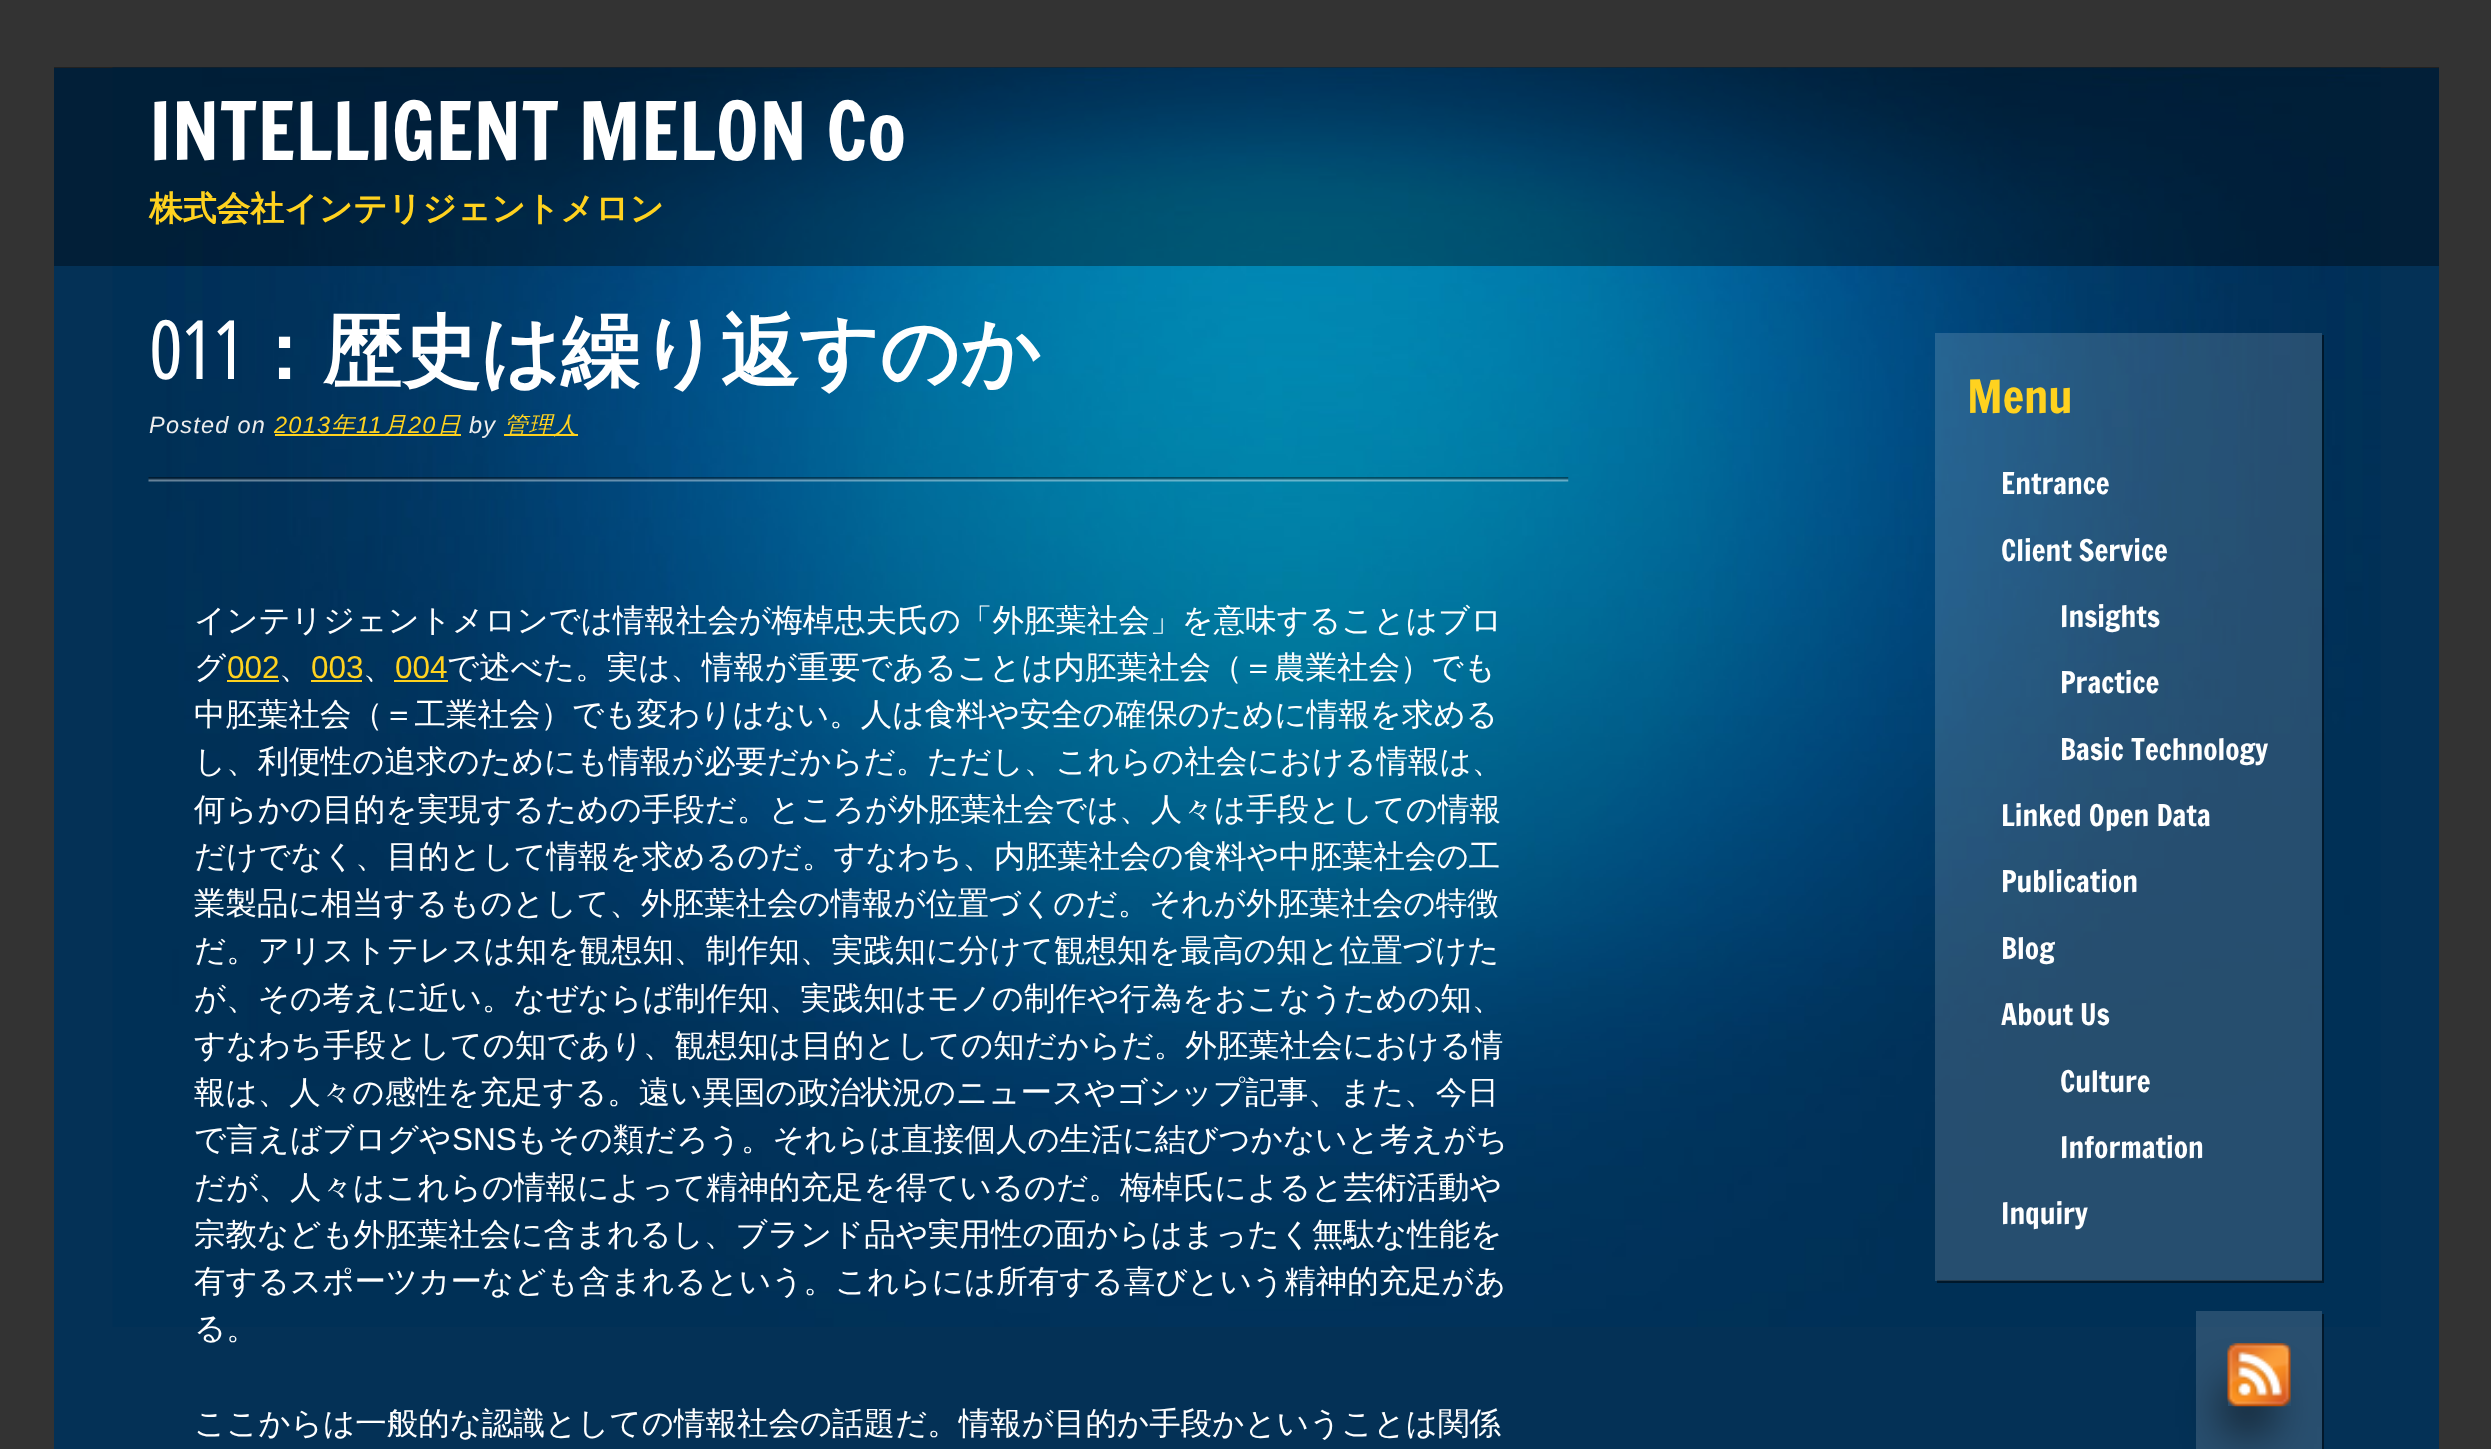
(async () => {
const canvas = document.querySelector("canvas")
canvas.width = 2491
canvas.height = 1449
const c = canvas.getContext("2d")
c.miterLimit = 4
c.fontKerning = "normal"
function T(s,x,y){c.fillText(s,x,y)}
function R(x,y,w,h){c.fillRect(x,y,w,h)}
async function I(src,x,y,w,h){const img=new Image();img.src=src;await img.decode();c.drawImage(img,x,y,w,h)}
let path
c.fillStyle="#333"
R(0,0,2491,1449)
c.fillStyle="#043156"
R(54,68,2385,1381)
await I("1.png",112,67,2269,1260)
c.fillStyle="#00000059"
R(54,67,2385,199)
c.font="78.75px Francois One"
c.fillStyle="#fff"
T("INTELLIGENT MELON Co",149,160)
c.font="bold 33.75px WenQuanYi Zen Hei"
c.fillStyle="#ffd21f"
T("株式会社インテリジェントメロン",149,220)
await I("2.png",148,477,1421,5)
c.font="bold 78.75px Open Sans Condensed"
c.fillStyle="#fff"
T("011",149,379)
c.font="bold 78.75px WenQuanYi Zen Hei"
T("：歴史は繰り返すのか",244,379)
c.letterSpacing="1.25px"
c.font="italic 23.5px Liberation Sans"
c.fillStyle="#eee"
T("Posted on",149,433)
c.fillStyle="#ffd21f"
T("2013",274,433)
R(275,434,186,2)
c.font="italic 500 23.5px WenQuanYi Zen Hei"
T("年",331,433)
c.font="italic 23.5px Liberation Sans"
T("11",356,433)
c.font="italic 500 23.5px WenQuanYi Zen Hei"
T("月",383,433)
c.font="italic 23.5px Liberation Sans"
T("20",408,433)
c.font="italic 500 23.5px WenQuanYi Zen Hei"
T("日",437,433)
c.font="italic 23.5px Liberation Sans"
c.fillStyle="#eee"
T("by",469,433)
c.fillStyle="#ffd21f"
R(504,434,74,2)
c.font="italic 500 23.5px WenQuanYi Zen Hei"
T("管理人",504,433)
c.letterSpacing="0px"
c.font="500 31.5px WenQuanYi Zen Hei"
c.fillStyle="#fff"
T("インテリジェントメロンでは情報社会が梅棹忠夫氏の「外胚葉社会」を意味することはブロ",194,631)
T("グ",194,678)
c.font="31.5px Liberation Sans"
c.fillStyle="#ffd21f"
T("002",227,678)
R(227,680,52,2)
c.font="500 31.5px WenQuanYi Zen Hei"
c.fillStyle="#fff"
T("、",279,678)
c.font="31.5px Liberation Sans"
c.fillStyle="#ffd21f"
T("003",311,678)
R(311,680,51,2)
c.font="500 31.5px WenQuanYi Zen Hei"
c.fillStyle="#fff"
T("、",363,678)
c.font="31.5px Liberation Sans"
c.fillStyle="#ffd21f"
T("004",395,678)
R(394,680,54,2)
c.font="500 31.5px WenQuanYi Zen Hei"
c.fillStyle="#fff"
T("で述べた。実は、情報が重要であることは内胚葉社会（＝農業社会）でも",447,678)
T("中胚葉社会（＝工業社会）でも変わりはない。人は食料や安全の確保のために情報を求める",194,725)
T("し、利便性の追求のためにも情報が必要だからだ。ただし、これらの社会における情報は、",194,772)
T("何らかの目的を実現するための手段だ。ところが外胚葉社会では、人々は手段としての情報",194,820)
T("だけでなく、目的として情報を求めるのだ。すなわち、内胚葉社会の食料や中胚葉社会の工",194,867)
T("業製品に相当するものとして、外胚葉社会の情報が位置づくのだ。それが外胚葉社会の特徴",194,914)
T("だ。アリストテレスは知を観想知、制作知、実践知に分けて観想知を最高の知と位置づけた",194,961)
T("が、その考えに近い。なぜならば制作知、実践知はモノの制作や行為をおこなうための知、",194,1009)
T("すなわち手段としての知であり、観想知は目的としての知だからだ。外胚葉社会における情",194,1056)
T("報は、人々の感性を充足する。遠い異国の政治状況のニュースやゴシップ記事、また、今日",194,1103)
T("で言えばブログや",194,1150)
c.font="31.5px Liberation Sans"
T("SNS",452,1150)
c.font="500 31.5px WenQuanYi Zen Hei"
T("もその類だろう。それらは直接個人の生活に結びつかないと考えがち",516,1150)
T("だが、人々はこれらの情報によって精神的充足を得ているのだ。梅棹氏によると芸術活動や",194,1198)
T("宗教なども外胚葉社会に含まれるし、ブランド品や実用性の面からはまったく無駄な性能を",194,1245)
T("有するスポーツカーなども含まれるという。これらには所有する喜びという精神的充足があ",194,1292)
T("る。",194,1339)
T("ここからは一般的な認識としての情報社会の話題だ。情報が目的か手段かということは関係",194,1434)
c.fillStyle="#00000080"
path = new Path2D("M1937 1280v3h387v-948h-2v945z")
c.fill(path)
c.fillStyle="#ffffff26"
R(1935,333,387,948)
c.font="45px Francois One"
c.fillStyle="#ffd21f"
T("Menu",1967,413)
c.font="29.25px Francois One"
c.fillStyle="#fff"
T("Entrance",2001,494)
T("Client Service",2001,561)
T("Insights",2060,627)
T("Practice",2060,693)
T("Basic Technology",2060,760)
T("Linked Open Data",2001,826)
T("Publication",2001,892)
T("Blog",2001,959)
T("About Us",2001,1025)
T("Culture",2060,1092)
T("Information",2060,1158)
T("Inquiry",2001,1224)
c.fillStyle="#00000080"
path = new Path2D("M2198 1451v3h126v-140h-2v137z")
c.fill(path)
c.fillStyle="#ffffff26"
R(2196,1311,126,138)
c.save()
path = new Path2D("M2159 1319h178v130h-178zm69 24h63v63h-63z")
c.clip(path,"evenodd")
c.fillStyle="#000000cc"
c.filter="blur(22.5px)"
c.beginPath()
c.rect(2228,1388,40,41)
c.fill()
c.filter="none"
c.restore()
await I("3.png",2227,1343,64,64)
})()
